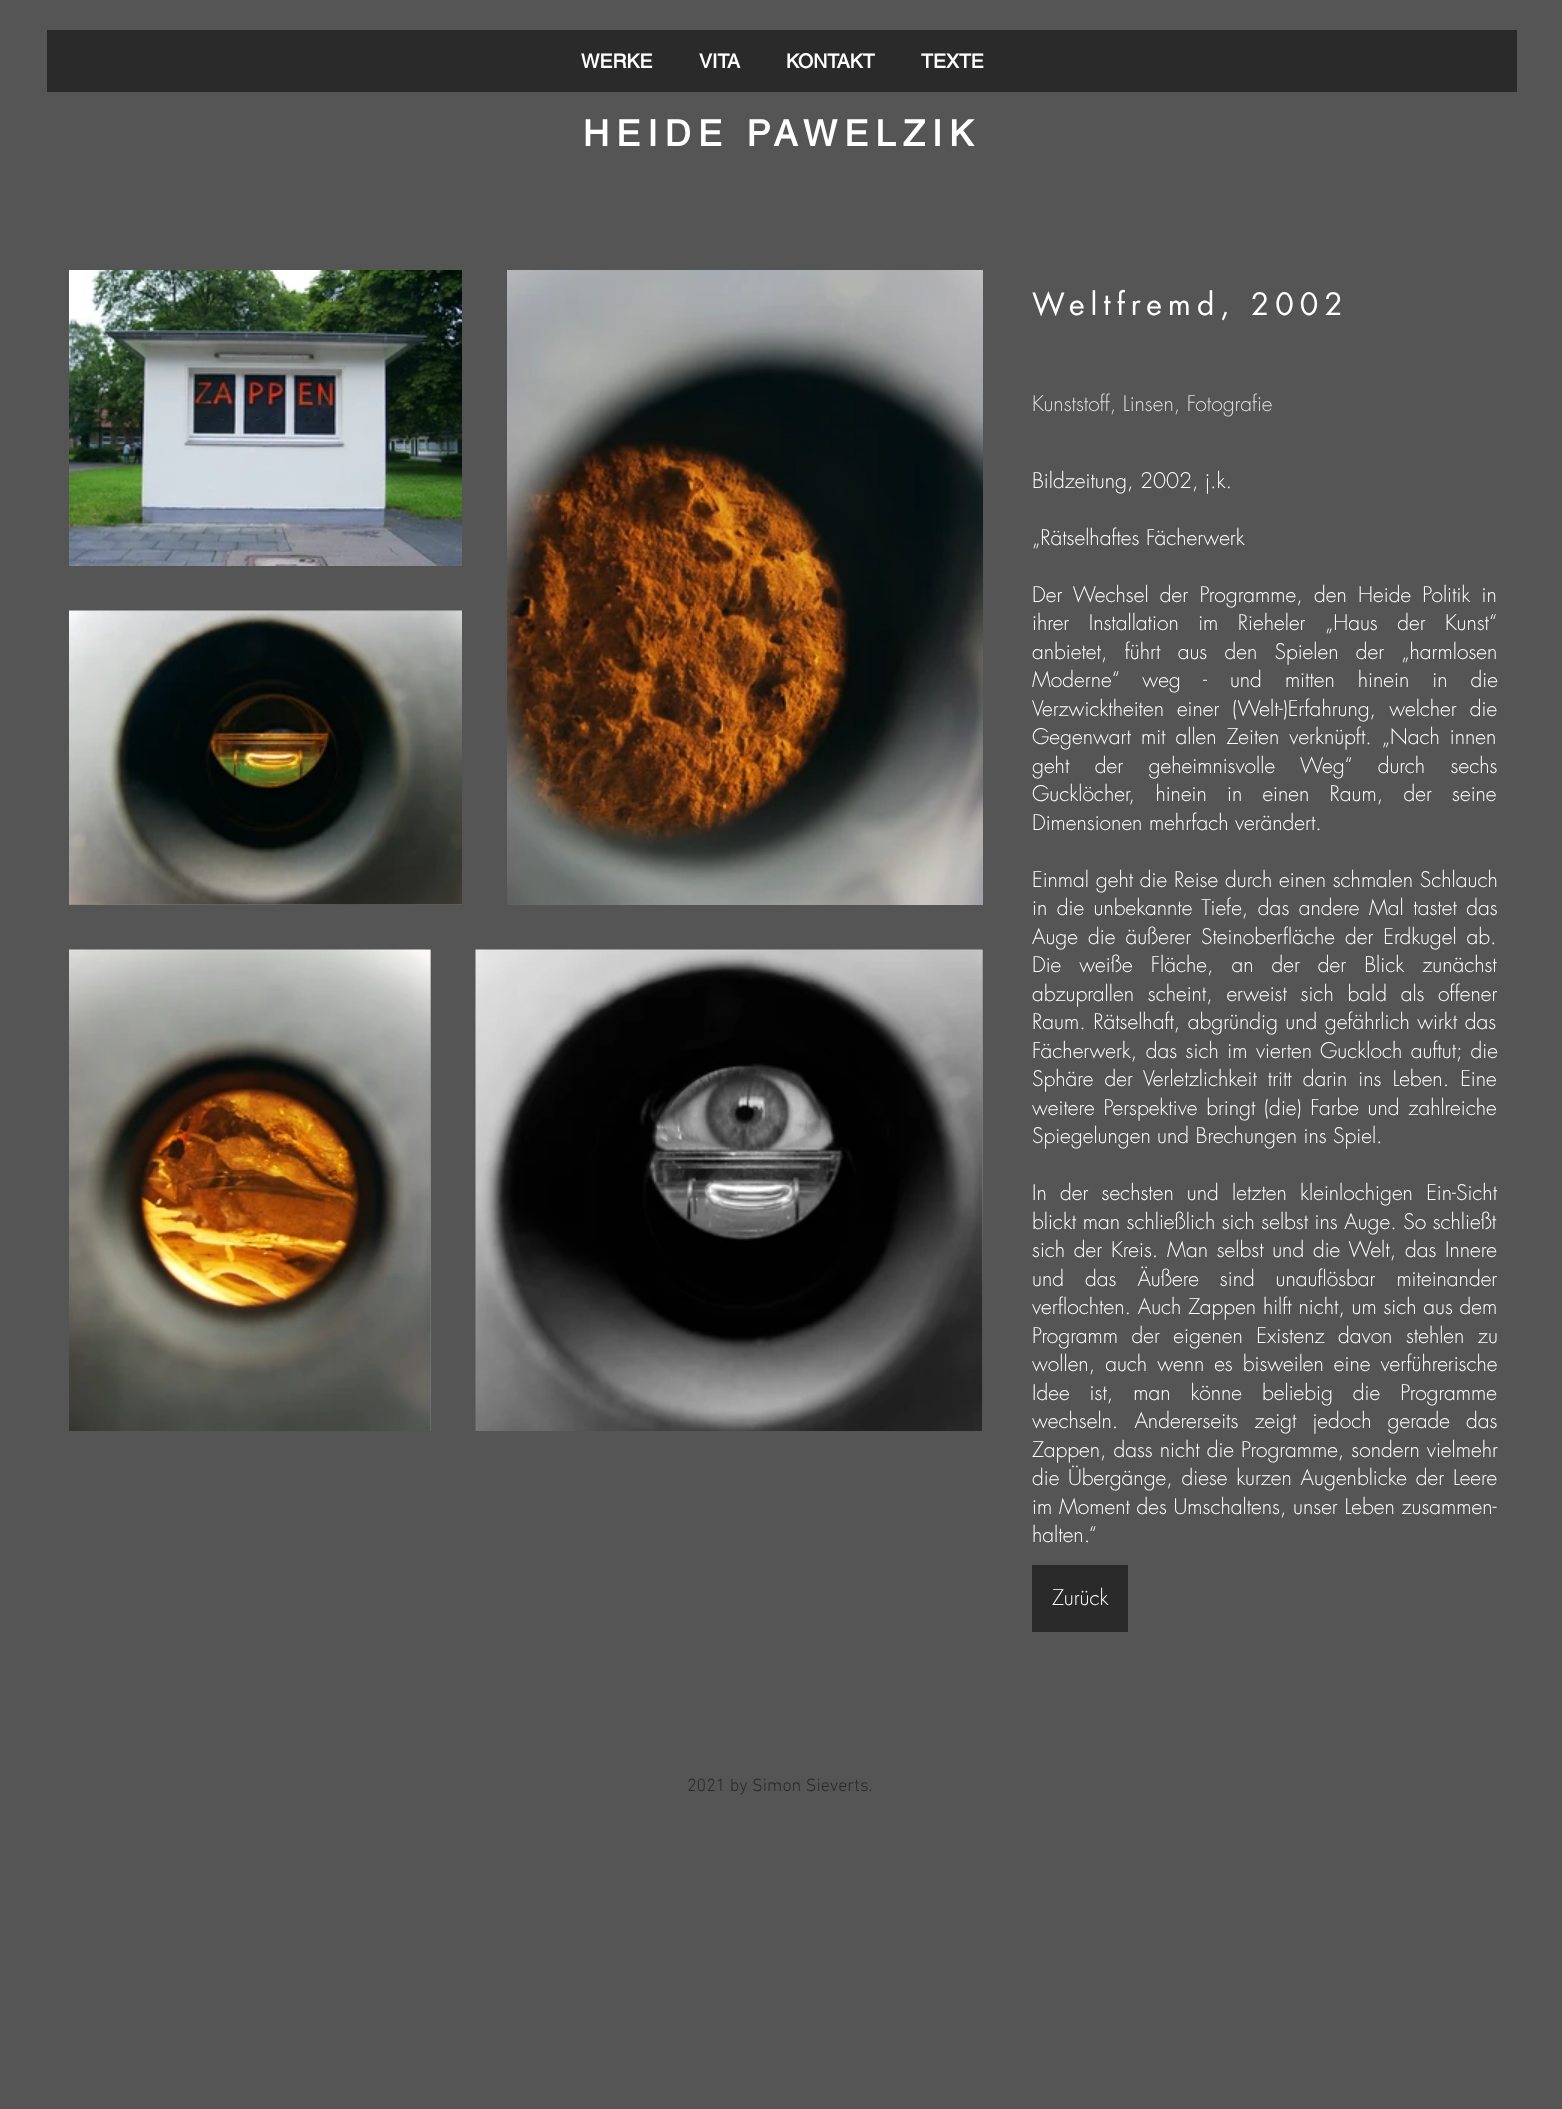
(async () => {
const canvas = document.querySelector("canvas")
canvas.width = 1562
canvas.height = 2109
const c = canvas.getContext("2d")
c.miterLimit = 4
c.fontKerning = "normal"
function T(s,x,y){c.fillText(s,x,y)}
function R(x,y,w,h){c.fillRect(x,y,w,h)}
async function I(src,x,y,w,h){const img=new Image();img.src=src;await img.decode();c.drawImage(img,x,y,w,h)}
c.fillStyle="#555"
R(0,0,1562,2109)
c.fillStyle="#2a2a2a"
R(47,30,1470,62)
c.font="bold 19.5px helvetica"
c.fillStyle="#fff"
T("WERKE",581,68)
T("VITA",699,68)
T("KONTAKT",786,68)
T("TEXTE",921,68)
c.letterSpacing="7.25px"
c.font="bold 36px helvetica"
T("HEIDE PAWELZIK",583,146)
await I("1.png",69,270,393,296)
await I("2.png",507,270,476,635)
c.fillStyle="#808080"
R(69,904,393,1)
await I("3.png",69,610,393,295)
R(430,950,1,481)
await I("4.png",69,949,362,482)
R(982,950,1,481)
await I("5.png",475,949,508,482)
c.letterSpacing="6px"
c.font="30px futura"
c.fillStyle="#fff"
T("Weltfremd, 2002",1032,315)
c.letterSpacing="0px"
c.font="300 21px futura"
c.fillStyle="#ddd"
T("Kunststoff, Linsen, Fotografie",1032,411)
c.fillStyle="#fff"
T("Bildzeitung, 2002, j.k.",1032,488)
T("„Rätselhaftes Fächerwerk",1032,545)
c.wordSpacing="4.75px"
T("Der Wechsel der Programme, den Heide Politik in",1032,602)
c.wordSpacing="13px"
T("ihrer Installation im Rieheler „Haus der Kunst“",1032,630)
c.wordSpacing="10.75px"
T("anbietet, führt aus den Spielen der „harmlosen",1032,659)
c.wordSpacing="16.5px"
T("Moderne“ weg - und mitten hinein in die",1032,687)
c.wordSpacing="6.5px"
T("Verzwicktheiten einer (Welt-)Erfahrung, welcher die",1032,716)
c.wordSpacing="3.5px"
T("Gegenwart mit allen Zeiten verknüpft. „Nach innen",1032,744)
c.wordSpacing="19px"
T("geht der geheimnisvolle Weg“ durch sechs",1032,773)
c.wordSpacing="13.75px"
T("Gucklöcher, hinein in einen Raum, der seine",1032,801)
c.wordSpacing="0px"
T("Dimensionen mehrfach verändert.",1032,830)
c.wordSpacing="0.25px"
T("Einmal geht die Reise durch einen schmalen Schlauch",1032,887)
c.wordSpacing="3px"
T("in die unbekannte Tiefe, das andere Mal tastet das",1032,915)
c.wordSpacing="3.5px"
T("Auge die äußerer Steinoberfläche der Erdkugel ab.",1032,944)
c.wordSpacing="11.5px"
T("Die weiße Fläche, an der der Blick zunächst",1032,972)
c.wordSpacing="7.25px"
T("abzuprallen scheint, erweist sich bald als offener",1032,1001)
c.wordSpacing="1px"
T("Raum. Rätselhaft, abgründig und gefährlich wirkt das",1032,1029)
c.wordSpacing="2px"
T("Fächerwerk, das sich im vierten Guckloch auftut; die",1032,1058)
c.wordSpacing="4.5px"
T("Sphäre der Verletzlichkeit tritt darin ins Leben. Eine",1032,1086)
c.wordSpacing="2.25px"
T("weitere Perspektive bringt (die) Farbe und zahlreiche",1032,1115)
c.wordSpacing="0px"
T("Spiegelungen und Brechungen ins Spiel.",1032,1143)
c.wordSpacing="6.75px"
T("In der sechsten und letzten kleinlochigen Ein-Sicht",1032,1200)
c.wordSpacing="0px"
T("blickt man schließlich sich selbst ins Auge. So schließt",1032,1229)
c.wordSpacing="2.25px"
T("sich der Kreis. Man selbst und die Welt, das Innere",1032,1257)
c.wordSpacing="14.5px"
T("und das Äußere sind unauflösbar miteinander",1032,1286)
c.wordSpacing="0.25px"
T("verflochten. Auch Zappen hilft nicht, um sich aus dem",1032,1314)
c.wordSpacing="7px"
T("Programm der eigenen Existenz davon stehlen zu",1032,1343)
c.wordSpacing="3.5px"
T("wollen, auch wenn es bisweilen eine verführerische",1032,1371)
c.wordSpacing="13.5px"
T("Idee ist, man könne beliebig die Programme",1032,1400)
c.wordSpacing="9.5px"
T("wechseln. Andererseits zeigt jedoch gerade das",1032,1428)
c.wordSpacing="0.5px"
T("Zappen, dass nicht die Programme, sondern vielmehr",1032,1457)
c.wordSpacing="2.25px"
T("die Übergänge, diese kurzen Augenblicke der Leere",1032,1485)
c.wordSpacing="0.25px"
T("im Moment des Umschaltens, unser Leben zusammen-",1032,1514)
c.wordSpacing="0px"
T("halten.“",1032,1542)
c.fillStyle="#2a2a2a"
R(1032,1565,96,67)
c.fillStyle="#fff"
T("Zurück",1052,1605)
c.font="300 18px 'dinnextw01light'"
c.fillStyle="#2a2a2a"
T("2021 by Simon Sieverts.",687,1791)
})()
